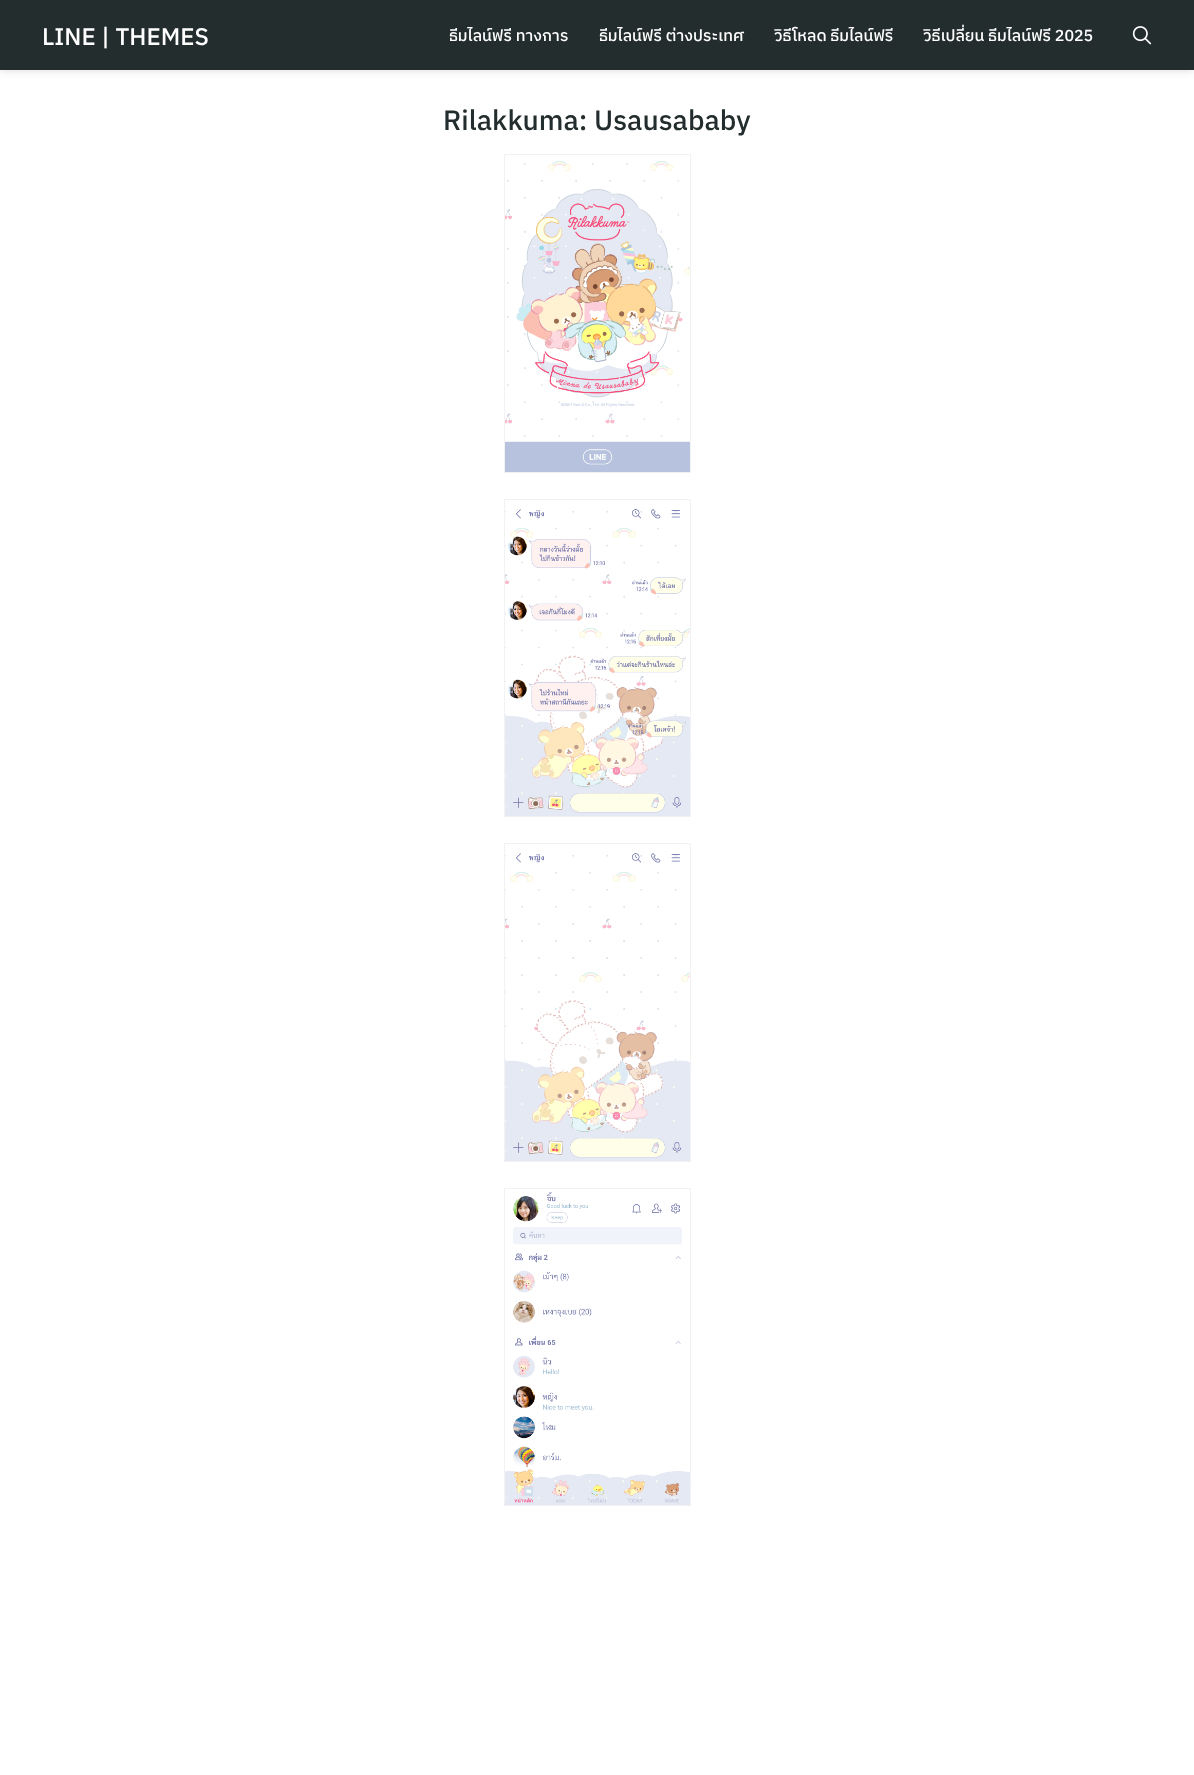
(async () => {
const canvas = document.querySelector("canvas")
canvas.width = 1194
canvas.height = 1775
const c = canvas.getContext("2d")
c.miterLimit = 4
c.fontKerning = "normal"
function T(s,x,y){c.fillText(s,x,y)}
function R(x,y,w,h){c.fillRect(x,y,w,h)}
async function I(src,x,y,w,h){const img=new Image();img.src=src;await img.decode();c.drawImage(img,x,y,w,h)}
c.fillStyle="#fff"
R(0,0,1194,1775)
c.fillStyle="#00000026"
c.filter="blur(5px)"
c.beginPath()
c.rect(0,0,1194,70)
c.fill()
c.filter="none"
c.fillStyle="#242d2e"
R(0,0,1194,70)
c.font="500 24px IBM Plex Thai"
c.fillStyle="#fff"
T("LINE | THEMES",42,45)
c.font="500 16px IBM Plex Thai"
T("ธีมไลน์ฟรี ทางการ",449,41)
T("ธีมไลน์ฟรี ต่างประเทศ",599,41)
T("วิธีโหลด ธีมไลน์ฟรี",774,41)
T("วิธีเปลี่ยน ธีมไลน์ฟรี 2025",923,41)
await I("1.png",1132,26,20,19)
c.font="500 28px IBM Plex Thai"
c.fillStyle="#242d2e"
T("Rilakkuma: Usausababy",443,130)
c.strokeStyle="#f2f2f2"
c.strokeRect(504.5,154.5,186,318)
await I("2.png",505,161,185,311)
c.strokeRect(504.5,499.5,186,317)
await I("3.png",505,509,185,307)
c.strokeRect(504.5,843.5,186,318)
await I("4.png",505,853,185,308)
c.strokeRect(504.5,1188.5,186,317)
await I("5.png",505,1192,185,313)
})()
